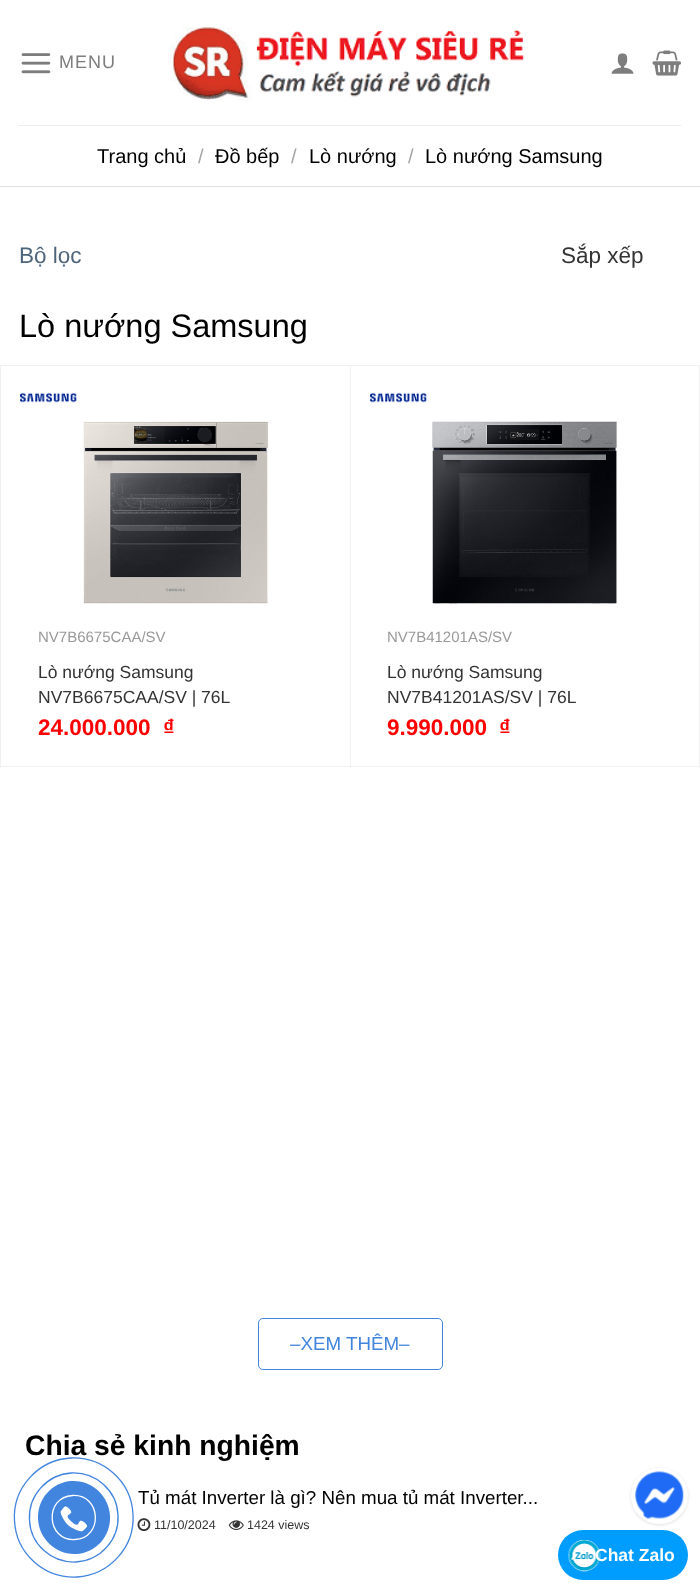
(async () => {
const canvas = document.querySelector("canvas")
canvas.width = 700
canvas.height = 1592
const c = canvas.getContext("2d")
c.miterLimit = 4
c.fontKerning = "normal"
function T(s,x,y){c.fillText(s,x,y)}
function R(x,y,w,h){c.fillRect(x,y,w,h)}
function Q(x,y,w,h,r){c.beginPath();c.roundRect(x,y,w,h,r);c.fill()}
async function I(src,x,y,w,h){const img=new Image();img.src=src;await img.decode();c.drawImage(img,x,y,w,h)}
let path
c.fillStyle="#fff"
R(0,0,700,1592)
await I("1.png",21,53,30,21)
c.letterSpacing="1px"
c.font="18px Liberation Sans"
c.fillStyle="#7d7d7d"
T("MENU",59,68)
await I("2.png",170,27,355,74)
await I("3.png",611,53,23,21)
await I("4.png",652,50,29,26)
c.fillStyle="#ebebeb"
R(19,125,662,1)
c.fillStyle="#ddd"
R(0,186,700,1)
c.letterSpacing="0px"
c.font="20px Liberation Sans"
c.fillStyle="#000"
T("Trang chủ",97,163)
c.fillStyle="#a6a6a6"
T("/",198,163)
c.fillStyle="#000"
T("Đồ bếp",215,163)
c.fillStyle="#a6a6a6"
T("/",291,163)
c.fillStyle="#000"
T("Lò nướng",309,163)
c.fillStyle="#a6a6a6"
T("/",408,163)
c.fillStyle="#000"
T("Lò nướng Samsung",425,163)
c.font="22.5px Liberation Sans"
c.fillStyle="#4e657b"
T("Bộ lọc",19,263)
c.fillStyle="#333"
T("Sắp xếp",561,263)
c.font="32.5px Liberation Sans"
c.fillStyle="#000"
T("Lò nướng Samsung",19,337)
c.fillStyle="#f1f1f1"
R(0,365,700,1)
R(0,365,1,403)
R(350,366,1,402)
R(1,766,350,1)
await I("5.png",20,392,57,11)
await I("6.png",83,421,186,183)
c.font="15px Liberation Sans"
c.fillStyle="#999"
T("NV7B6675CAA/SV",38,642)
c.font="17.5px Liberation Sans"
c.fillStyle="#333"
T("Lò nướng Samsung",38,678)
T("NV7B6675CAA/SV | 76L",38,703)
c.font="bold 22.5px Liberation Sans"
c.fillStyle="#f00"
T("24.000.000",38,735)
T("₫",163,735)
c.fillStyle="#f1f1f1"
R(699,366,1,402)
R(351,766,349,1)
await I("7.png",370,392,57,11)
await I("8.png",432,421,186,183)
c.font="15px Liberation Sans"
c.fillStyle="#999"
T("NV7B41201AS/SV",387,642)
c.font="17.5px Liberation Sans"
c.fillStyle="#333"
T("Lò nướng Samsung",387,678)
T("NV7B41201AS/SV | 76L",387,703)
c.font="bold 22.5px Liberation Sans"
c.fillStyle="#f00"
T("9.990.000",387,735)
T("₫",499,735)
c.beginPath()
c.roundRect(258.5,1318.5,184,51,4.5)
c.strokeStyle="#4285de"
c.stroke()
c.font="18.75px Liberation Sans"
c.fillStyle="#4285de"
T("–XEM THÊM–",290,1350)
c.font="bold 28.25px Liberation Sans"
c.fillStyle="#000"
T("Chia sẻ kinh nghiệm",25,1455)
c.font="18.75px Liberation Sans"
T("Tủ mát Inverter là gì? Nên mua tủ mát Inverter...",138,1504)
await I("9.png",137,1518,14,14)
c.font="12.5px Liberation Sans"
c.fillStyle="#333"
T("11/10/2024",154,1529)
await I("10.png",228,1520,16,10)
T("1424 views",247,1529)
c.fillStyle="#4285de"
path = new Path2D("M72 1481c20-1 37 15 38 35c1 20-14 37-34 38c-20 1-37-15-38-35c-1-20 14-37 34-38z")
c.fill(path)
path = new Path2D("M71.5 1473c24.5-1 45.5 17.5 46.5 42c1.5 24.5-17.5 45.5-42 47c-24.5 1-45.5-17.5-46.5-42c-1.5-24.5 17.5-45.5 42-47z")
c.lineWidth=1.3
c.stroke(path)
await I("11.png",60,1506,28,26)
path = new Path2D("M70.5 1458c33-1.5 61 23.5 62.5 56.5c2 32.5-23.5 60.5-56 62.5c-33 1.5-61-23.5-62.5-56.5c-2-32.5 23.5-60.5 56-62.5z")
c.stroke(path)
path = new Path2D("M72.5 1495.5c29-1.5 31 42.5 2.5 44c-29 1.5-31-42.5-2.5-44z")
c.strokeStyle="#fff"
c.stroke(path)
c.fillStyle="#0000000d"
c.filter="blur(2px)"
c.beginPath()
c.roundRect(631,1469,57,56,28)
c.fill()
c.filter="none"
c.fillStyle="#00000014"
c.filter="blur(1px)"
c.beginPath()
c.roundRect(631,1469,57,56,28)
c.fill()
c.filter="none"
c.fillStyle="#fff"
c.beginPath()
c.roundRect(632.5,1469.5,54,53,26.5)
c.fill()
c.lineWidth=3
c.stroke()
await I("12.png",635,1471,49,48)
c.fillStyle="#009dff"
Q(558,1530,130,50,25)
await I("13.png",568,1540,33,32)
c.font="bold 17.5px Liberation Sans"
c.fillStyle="#fff"
T("Chat Zalo",595,1561)
})()
